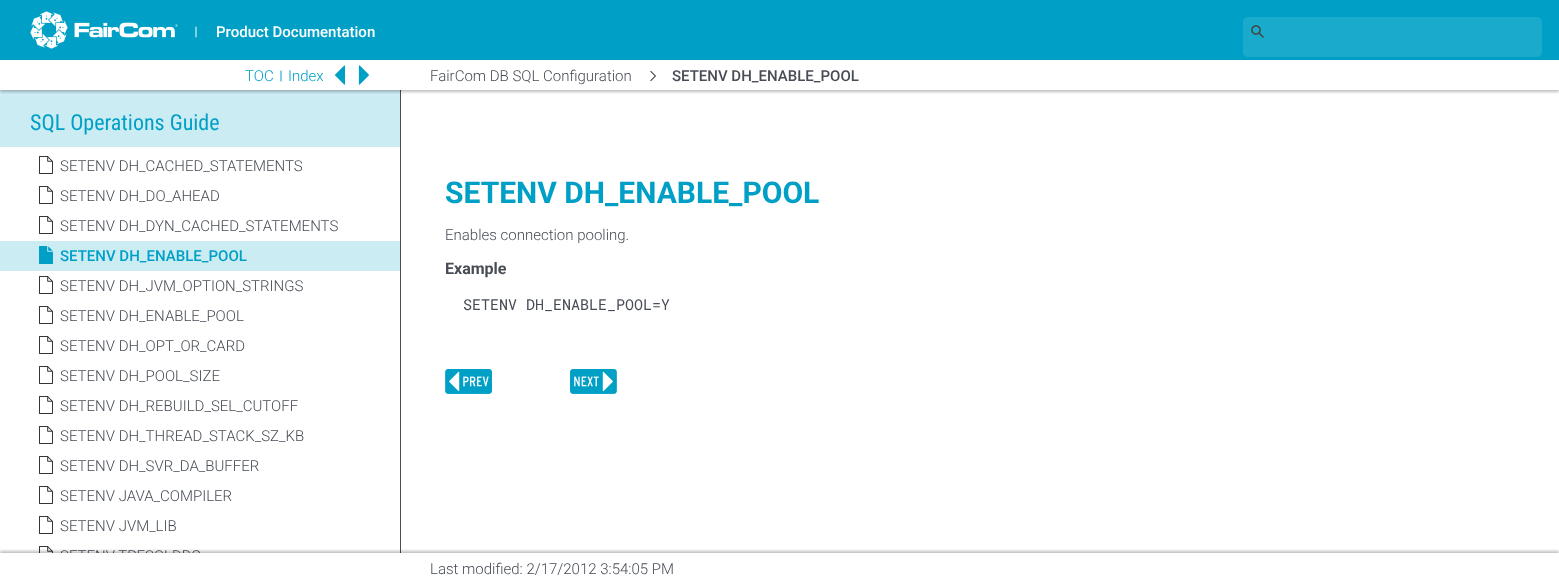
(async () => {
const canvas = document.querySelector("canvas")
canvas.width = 1559
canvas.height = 583
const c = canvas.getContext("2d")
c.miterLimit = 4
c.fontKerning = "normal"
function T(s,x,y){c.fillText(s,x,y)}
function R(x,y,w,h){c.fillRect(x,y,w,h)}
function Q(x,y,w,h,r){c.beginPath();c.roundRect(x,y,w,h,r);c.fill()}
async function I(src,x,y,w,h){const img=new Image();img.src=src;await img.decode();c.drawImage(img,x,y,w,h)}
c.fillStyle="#fff"
R(0,0,1559,583)
c.fillStyle="#00a0c6"
R(0,0,1559,60)
await I("1.png",30,11,148,38)
await I("2.png",195,26,2,12)
c.font="500 15px Roboto"
c.fillStyle="#fff"
T("Product Documentation",216,37)
c.fillStyle="#1aaacc"
Q(1243,17,299,40,5)
await I("3.png",1251,25,13,13)
await I("8.png",0,90,400,463)
c.fillStyle="#474c55"
R(400,90,1,463)
c.save()
c.beginPath()
c.rect(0,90,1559,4)
c.clip()
c.fillStyle="#00000040"
c.filter="blur(1.5px)"
c.beginPath()
c.rect(0,62,1559,30)
c.fill()
c.filter="none"
c.restore()
c.font="300 15px Roboto"
c.fillStyle="#00a0c6"
T("TOC",245,81)
await I("4.png",280,70,2,12)
T("Index",288,81)
await I("5.png",334,65,11,20)
await I("6.png",358,65,11,20)
c.fillStyle="#474c55"
T("FairCom DB SQL Configuration",430,81)
await I("7.png",650,71,6,10)
c.font="500 15px Roboto"
T("SETENV DH_ENABLE_POOL",672,81)
c.font="bold 30px Roboto"
c.fillStyle="#00a0c6"
T("SETENV DH_ENABLE_POOL",445,203)
c.font="300 15px Roboto"
c.fillStyle="#474c55"
T("Enables connection pooling.",445,240)
c.font="bold 16px Roboto"
T("Example",445,274)
c.font="15px Roboto Mono"
T("SETENV DH_ENABLE_POOL=Y",463,310)
await I("9.png",445,369,47,25)
await I("10.png",570,369,47,25)
c.save()
c.beginPath()
c.rect(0,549,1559,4)
c.clip()
c.fillStyle="#00000040"
c.filter="blur(1.5px)"
c.beginPath()
c.rect(0,551,1559,30)
c.fill()
c.filter="none"
c.restore()
c.font="300 15px Roboto"
T("Last modified: 2/17/2012 3:54:05 PM",430,574)
})()
